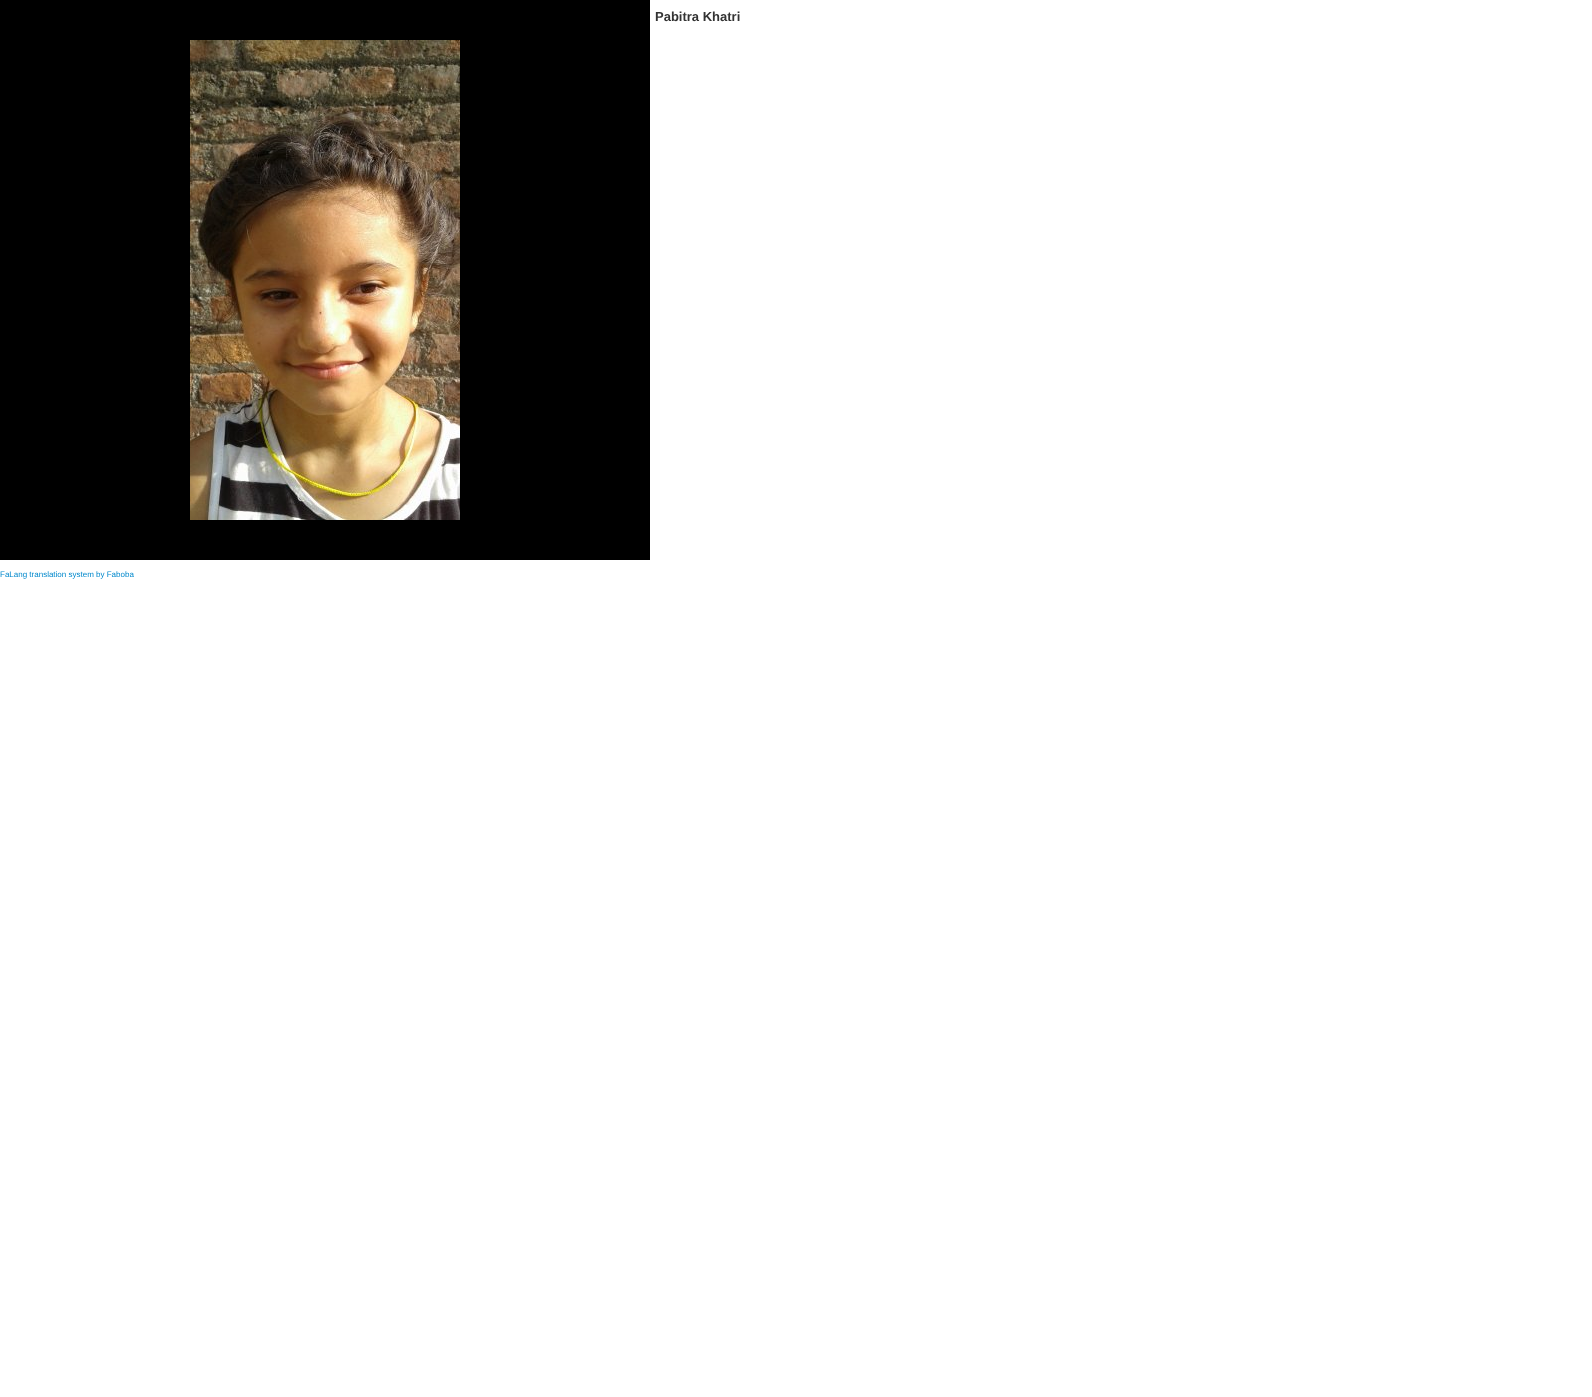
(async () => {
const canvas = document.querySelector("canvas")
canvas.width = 1592
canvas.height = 1397
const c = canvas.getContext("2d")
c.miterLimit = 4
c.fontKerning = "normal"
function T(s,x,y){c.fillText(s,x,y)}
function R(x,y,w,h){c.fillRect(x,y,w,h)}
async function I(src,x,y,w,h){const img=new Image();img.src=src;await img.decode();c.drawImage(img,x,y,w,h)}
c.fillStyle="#fff"
R(0,0,1592,1397)
c.fillStyle="#000"
R(0,0,650,560)
await I("1.png",190,40,270,480)
c.font="bold 13px Liberation Sans"
c.fillStyle="#333"
T("Pabitra Khatri",655,21)
c.font="8px Liberation Sans"
c.fillStyle="#08c"
T("FaLang translation system by Faboba",0,577)
})()
